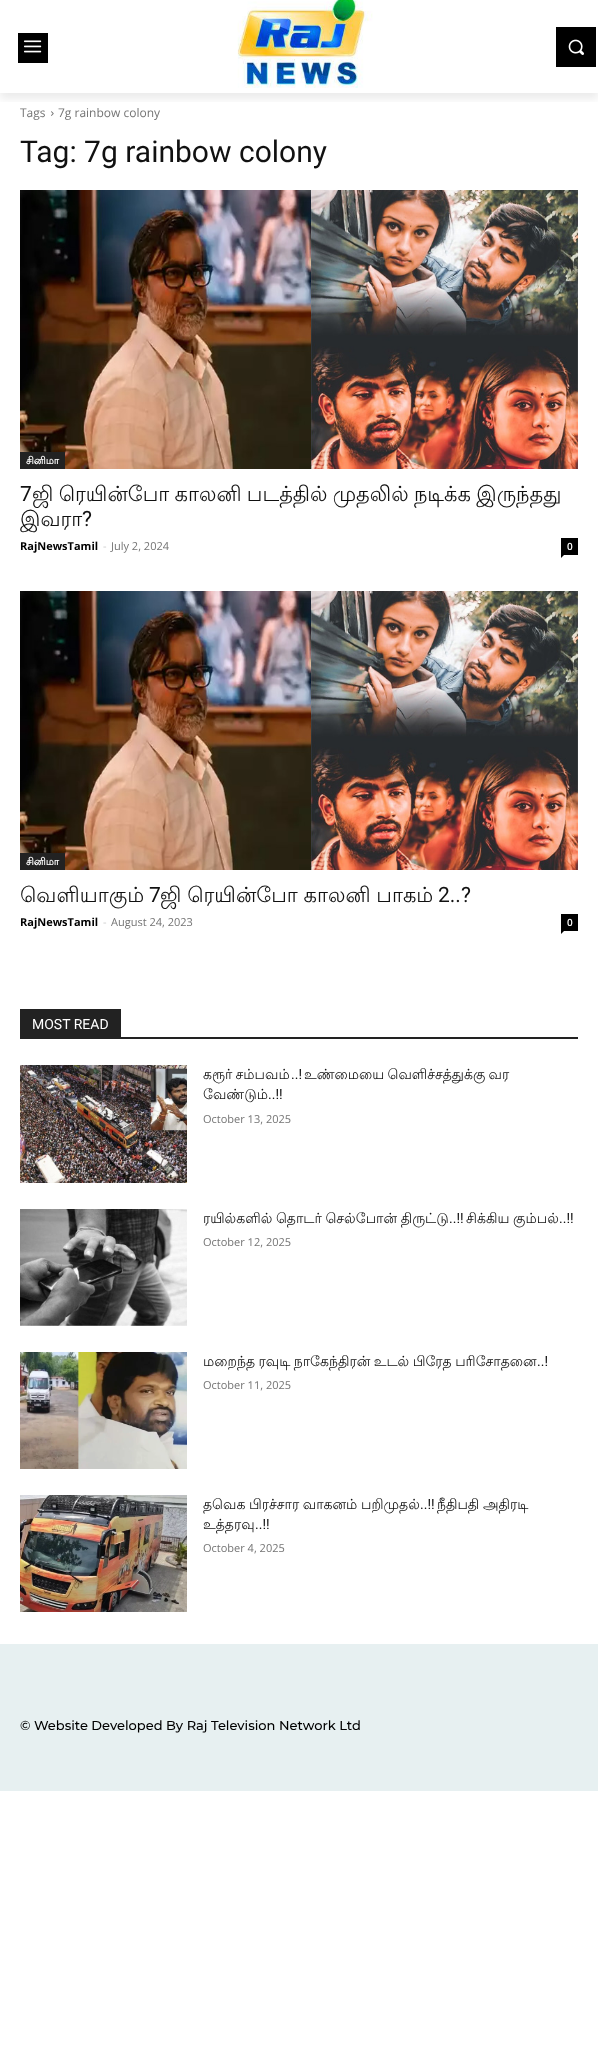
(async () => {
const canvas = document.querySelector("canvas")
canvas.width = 598
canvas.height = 2051
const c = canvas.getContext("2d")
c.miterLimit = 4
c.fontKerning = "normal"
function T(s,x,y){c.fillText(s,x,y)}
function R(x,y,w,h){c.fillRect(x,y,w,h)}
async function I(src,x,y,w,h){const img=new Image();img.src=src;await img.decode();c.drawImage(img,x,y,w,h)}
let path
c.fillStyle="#fff"
R(0,0,598,2051)
c.fillStyle="#000"
R(18,33,30,30)
await I("1.png",24,40,18,13)
await I("2.png",237,0,136,88)
R(556,27,40,40)
await I("3.png",568,39,16,16)
await I("4.png",51,111,3,5)
c.save()
c.beginPath()
c.rect(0,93,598,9)
c.clip()
c.fillStyle="#00000014"
c.filter="blur(4px)"
c.beginPath()
c.rect(0,6,598,93)
c.fill()
c.filter="none"
c.restore()
c.font="12px Open Sans"
c.fillStyle="#747474"
T("Tags",20,117)
T("7g rainbow colony",58,117)
c.font="30px Roboto"
c.fillStyle="#111"
T("Tag: 7g rainbow colony",20,162)
await I("5.png",20,190,558,279)
c.fillStyle="#222"
R(20,452,45,17)
c.font="bold 10px Lohit Tamil"
c.fillStyle="#fff"
T("சினிமா",26,464)
c.font="21px Roboto"
c.fillStyle="#111"
T("7",20,501)
c.wordSpacing="-1px"
c.font="21px Lohit Tamil"
T("ஜி ரெயின்போ காலனி படத்தில் முதலில் நடிக்க இருந்தது",32,501)
c.wordSpacing="0px"
T("இவரா",20,526)
c.font="21px Roboto"
T("?",82,526)
c.font="bold 11px Open Sans"
c.fillStyle="#000"
T("RajNewsTamil",20,550)
c.font="11px Open Sans"
c.fillStyle="#ccc"
T("-",103,550)
c.fillStyle="#747474"
T("July 2, 2024",111,550)
c.fillStyle="#000"
R(561,538,17,17)
c.font="600 10px Open Sans"
c.fillStyle="#fff"
T("0",567,550)
c.fillStyle="#000"
path = new Path2D("M561 555h3l-3 3z")
c.fill(path)
await I("5.png",20,591,558,279)
c.fillStyle="#222"
R(20,853,45,17)
c.font="bold 10px Lohit Tamil"
c.fillStyle="#fff"
T("சினிமா",26,865)
c.font="21px Lohit Tamil"
c.fillStyle="#111"
T("வெளியாகும்",20,902)
c.font="21px Roboto"
T("7",149,902)
c.wordSpacing="-0.5px"
c.font="21px Lohit Tamil"
T("ஜி ரெயின்போ காலனி பாகம்",160,902)
c.wordSpacing="0px"
c.font="21px Roboto"
T("2..?",438,902)
c.font="bold 11px Open Sans"
c.fillStyle="#000"
T("RajNewsTamil",20,926)
c.font="11px Open Sans"
c.fillStyle="#ccc"
T("-",103,926)
c.fillStyle="#747474"
T("August 24, 2023",111,926)
c.fillStyle="#000"
R(561,914,17,17)
c.font="600 10px Open Sans"
c.fillStyle="#fff"
T("0",567,926)
c.fillStyle="#000"
path = new Path2D("M561 931h3l-3 3z")
c.fill(path)
c.fillStyle="#222"
R(20,1037,558,2)
R(20,1009,101,28)
c.font="14px Roboto"
c.fillStyle="#fff"
T("MOST READ",32,1029)
await I("6.png",20,1065,167,118)
c.wordSpacing="-1px"
c.font="14px Lohit Tamil"
c.fillStyle="#111"
T("கரூர் சம்பவம்",203,1079)
c.wordSpacing="0px"
c.font="14px Roboto"
T("..!",291,1079)
c.wordSpacing="-1px"
c.font="14px Lohit Tamil"
T("உண்மையை வெளிச்சத்துக்கு வர",304,1079)
c.wordSpacing="0px"
T("வேண்டும்",203,1099)
c.font="14px Roboto"
T("..!!",268,1099)
c.font="11px Open Sans"
c.fillStyle="#747474"
T("October 13, 2025",203,1123)
await I("7.png",20,1209,167,117)
c.wordSpacing="-0.5px"
c.font="14px Lohit Tamil"
c.fillStyle="#111"
T("ரயில்களில் தொடர் செல்போன் திருட்டு",203,1223)
c.wordSpacing="0px"
c.font="14px Roboto"
T("..!!",449,1223)
c.wordSpacing="-0.5px"
c.font="14px Lohit Tamil"
T("சிக்கிய கும்பல்",466,1223)
c.wordSpacing="0px"
c.font="14px Roboto"
T("..!!",559,1223)
c.font="11px Open Sans"
c.fillStyle="#747474"
T("October 12, 2025",203,1246)
await I("8.png",20,1352,167,117)
c.wordSpacing="-0.75px"
c.font="14px Lohit Tamil"
c.fillStyle="#111"
T("மறைந்த ரவுடி நாகேந்திரன் உடல் பிரேத பரிசோதனை",203,1366)
c.wordSpacing="0px"
c.font="14px Roboto"
T("..!",537,1366)
c.font="11px Open Sans"
c.fillStyle="#747474"
T("October 11, 2025",203,1389)
await I("9.png",20,1495,167,117)
c.wordSpacing="-0.5px"
c.font="14px Lohit Tamil"
c.fillStyle="#111"
T("தவெக பிரச்சார வாகனம் பறிமுதல்",203,1509)
c.wordSpacing="0px"
c.font="14px Roboto"
T("..!!",420,1509)
c.wordSpacing="-0.5px"
c.font="14px Lohit Tamil"
T("நீதிபதி அதிரடி",437,1509)
c.wordSpacing="0px"
T("உத்தரவு",203,1529)
c.font="14px Roboto"
T("..!!",255,1529)
c.font="11px Open Sans"
c.fillStyle="#747474"
T("October 4, 2025",203,1552)
c.fillStyle="#e7f0f1"
R(0,1644,598,147)
c.font="500 13px Montserrat"
c.fillStyle="#000"
T("© Website Developed By Raj Television Network Ltd",20,1730)
})()
